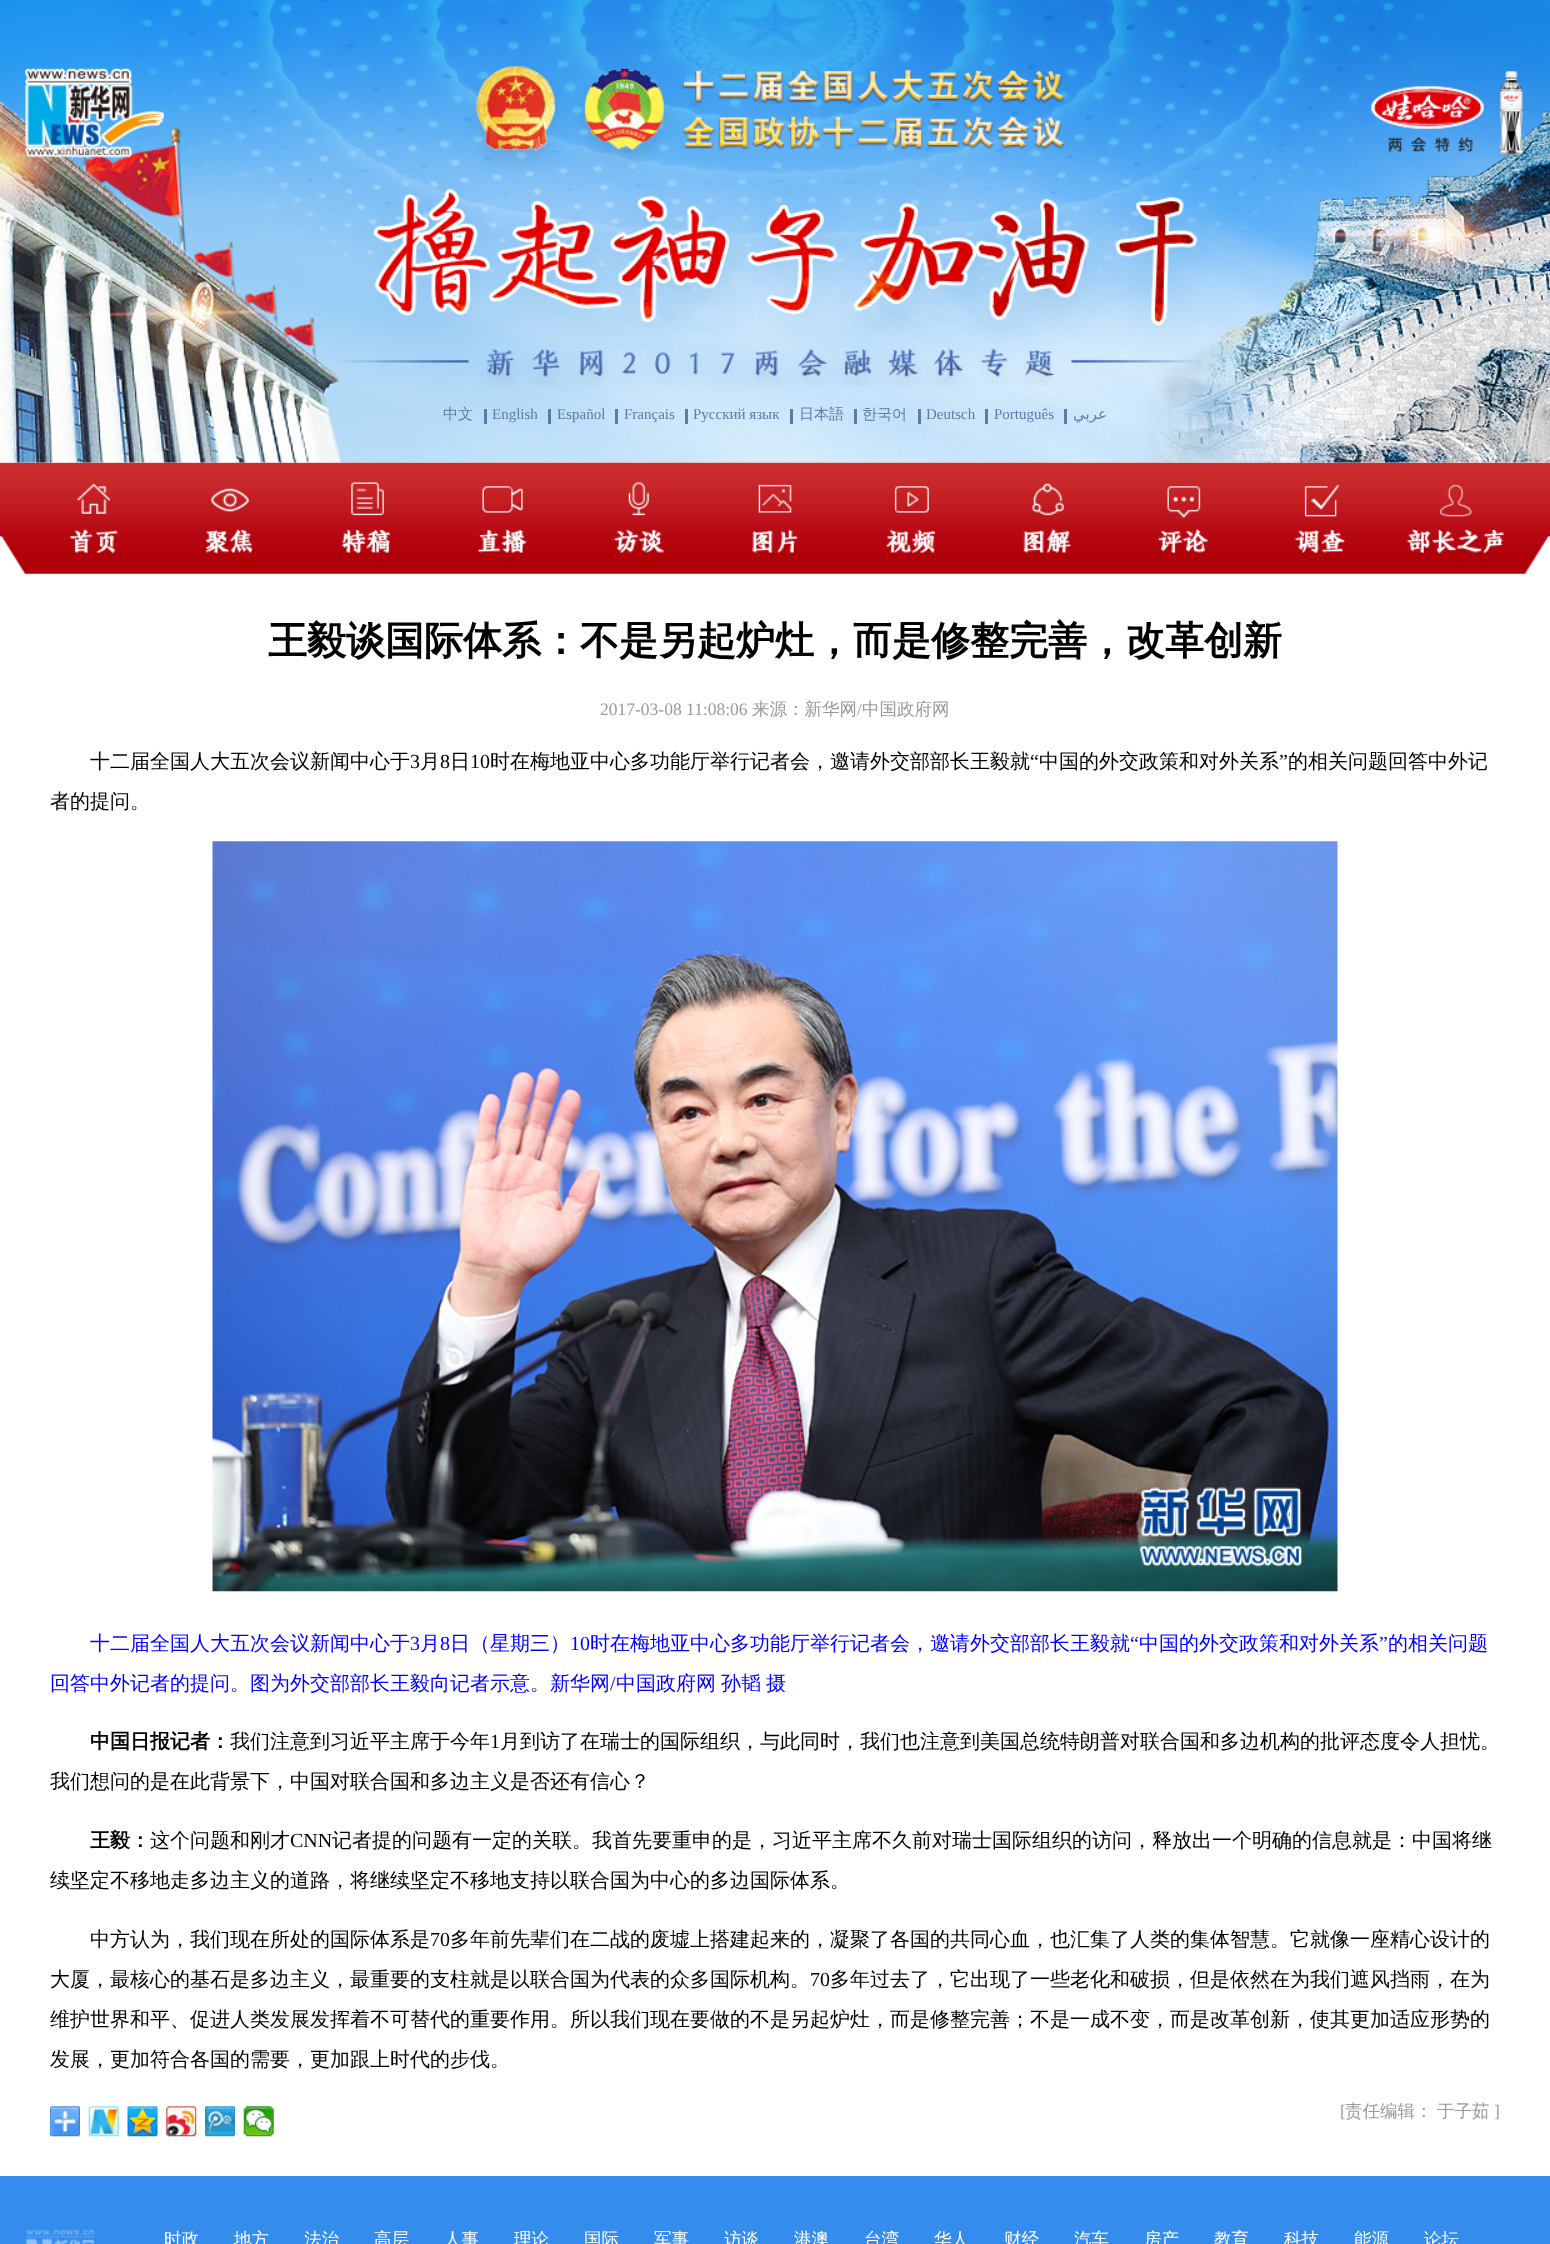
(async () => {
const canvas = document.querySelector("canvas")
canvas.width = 1550
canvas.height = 2244
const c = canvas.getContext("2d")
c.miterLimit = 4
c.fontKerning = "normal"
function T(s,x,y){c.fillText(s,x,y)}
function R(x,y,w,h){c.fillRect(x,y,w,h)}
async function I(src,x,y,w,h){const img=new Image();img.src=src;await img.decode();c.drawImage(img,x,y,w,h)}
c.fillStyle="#fff"
R(0,0,1550,2244)
await I("7.png",0,462,1550,112)
await I("1.png",0,0,1550,463)
await I("3.png",336,66,871,320)
await I("2.png",0,100,342,363)
await I("4.png",1146,110,404,353)
await I("5.png",25,68,140,90)
await I("6.png",1371,71,152,85)
c.font="500 15px WenQuanYi Zen Hei"
c.fillStyle="#6378a5"
T("中文",443,419)
R(484,409,3,15)
c.font="15px Liberation Serif"
T("English",492,419)
R(548,409,3,15)
T("Español",557,419)
R(615,409,3,15)
T("Français",624,419)
R(685,409,3,15)
T("Русский язык",693,419)
R(790,409,3,15)
c.font="500 15px WenQuanYi Zen Hei"
T("日本語",799,419)
R(854,409,3,15)
T("한국어",862,419)
R(918,409,3,15)
c.font="15px Liberation Serif"
T("Deutsch",926,419)
R(985,409,3,15)
T("Português",994,419)
R(1064,409,3,15)
c.direction="rtl"
c.font="15px DejaVu Sans"
T("عربي",1107,419)
await I("8.png",70,483,48,71)
await I("9.png",206,488,47,66)
await I("10.png",342,482,48,72)
await I("11.png",477,486,50,68)
await I("12.png",613,482,51,71)
await I("13.png",752,484,46,70)
await I("14.png",886,486,49,68)
await I("15.png",1023,483,49,70)
await I("16.png",1158,486,50,68)
await I("17.png",1295,484,50,70)
await I("18.png",1407,484,97,70)
c.direction="ltr"
c.font="bold 39px WenQuanYi Zen Hei"
c.fillStyle="#000"
T("王毅谈国际体系：不是另起炉灶，而是修整完善，改革创新",268,654)
c.font="17.5px Liberation Serif"
c.fillStyle="#999"
T("2017-03-08 11:08:06",600,715)
c.font="500 17.5px WenQuanYi Zen Hei"
T("来源：新华网",752,715)
c.font="17.5px Liberation Serif"
T("/",857,715)
c.font="500 17.5px WenQuanYi Zen Hei"
T("中国政府网",862,715)
c.font="500 20px WenQuanYi Zen Hei"
c.fillStyle="#000"
T("十二届全国人大五次会议新闻中心于",90,768)
c.font="20px Liberation Serif"
T("3",410,768)
c.font="500 20px WenQuanYi Zen Hei"
T("月",420,768)
c.font="20px Liberation Serif"
T("8",440,768)
c.font="500 20px WenQuanYi Zen Hei"
T("日",450,768)
c.font="20px Liberation Serif"
T("10",470,768)
c.font="500 20px WenQuanYi Zen Hei"
T("时在梅地亚中心多功能厅举行记者会，邀请外交部部长王毅就",490,768)
c.font="20px Liberation Serif"
T("“",1030,768)
c.font="500 20px WenQuanYi Zen Hei"
T("中国的外交政策和对外关系",1039,768)
c.font="20px Liberation Serif"
T("”",1279,768)
c.font="500 20px WenQuanYi Zen Hei"
T("的相关问题回答中外记",1288,768)
T("者的提问。",50,808)
await I("19.png",212,841,1126,751)
c.fillStyle="#00f"
T("十二届全国人大五次会议新闻中心于",90,1650)
c.font="20px Liberation Serif"
T("3",410,1650)
c.font="500 20px WenQuanYi Zen Hei"
T("月",420,1650)
c.font="20px Liberation Serif"
T("8",440,1650)
c.font="500 20px WenQuanYi Zen Hei"
T("日（星期三）",450,1650)
c.font="20px Liberation Serif"
T("10",570,1650)
c.font="500 20px WenQuanYi Zen Hei"
T("时在梅地亚中心多功能厅举行记者会，邀请外交部部长王毅就",590,1650)
c.font="20px Liberation Serif"
T("“",1130,1650)
c.font="500 20px WenQuanYi Zen Hei"
T("中国的外交政策和对外关系",1139,1650)
c.font="20px Liberation Serif"
T("”",1379,1650)
c.font="500 20px WenQuanYi Zen Hei"
T("的相关问题",1388,1650)
T("回答中外记者的提问。图为外交部部长王毅向记者示意。新华网",50,1690)
c.font="20px Liberation Serif"
T("/",610,1690)
c.wordSpacing="-1px"
c.font="500 20px WenQuanYi Zen Hei"
T("中国政府网 孙韬 摄",616,1690)
c.wordSpacing="0px"
c.font="bold 20px WenQuanYi Zen Hei"
c.fillStyle="#000"
T("中国日报记者：",90,1748)
c.font="500 20px WenQuanYi Zen Hei"
T("我们注意到习近平主席于今年",230,1748)
c.font="20px Liberation Serif"
T("1",490,1748)
c.font="500 20px WenQuanYi Zen Hei"
T("月到访了在瑞士的国际组织，与此同时，我们也注意到美国总统特朗普对联合国和多边机构的批评态度令人担忧。",500,1748)
T("我们想问的是在此背景下，中国对联合国和多边主义是否还有信心？",50,1788)
c.font="bold 20px WenQuanYi Zen Hei"
T("王毅：",90,1847)
c.font="500 20px WenQuanYi Zen Hei"
T("这个问题和刚才",150,1847)
c.font="20px Liberation Serif"
T("CNN",290,1847)
c.font="500 20px WenQuanYi Zen Hei"
T("记者提的问题有一定的关联。我首先要重申的是，习近平主席不久前对瑞士国际组织的访问，释放出一个明确的信息就是：中国将继",332,1847)
T("续坚定不移地走多边主义的道路，将继续坚定不移地支持以联合国为中心的多边国际体系。",50,1887)
T("中方认为，我们现在所处的国际体系是",90,1946)
c.font="20px Liberation Serif"
T("70",430,1946)
c.font="500 20px WenQuanYi Zen Hei"
T("多年前先辈们在二战的废墟上搭建起来的，凝聚了各国的共同心血，也汇集了人类的集体智慧。它就像一座精心设计的",450,1946)
T("大厦，最核心的基石是多边主义，最重要的支柱就是以联合国为代表的众多国际机构。",50,1986)
c.font="20px Liberation Serif"
T("70",810,1986)
c.font="500 20px WenQuanYi Zen Hei"
T("多年过去了，它出现了一些老化和破损，但是依然在为我们遮风挡雨，在为",830,1986)
T("维护世界和平、促进人类发展发挥着不可替代的重要作用。所以我们现在要做的不是另起炉灶，而是修整完善；不是一成不变，而是改革创新，使其更加适应形势的",50,2026)
T("发展，更加符合各国的需要，更加跟上时代的步伐。",50,2066)
await I("20.png",50,2106,30,31)
await I("21.png",88,2106,31,31)
await I("22.png",127,2106,31,31)
await I("23.png",166,2106,31,31)
await I("24.png",205,2106,30,31)
await I("25.png",243,2106,31,31)
c.font="17.5px Liberation Serif"
c.fillStyle="#999"
T("[",1340,2117)
c.font="500 17.5px WenQuanYi Zen Hei"
T("责任编辑：",1345,2117)
T("于子茹",1437,2117)
c.font="17.5px Liberation Serif"
T("]",1494,2117)
c.fillStyle="#348cec"
R(0,2176,1550,68)
await I("26.png",26,2230,69,14)
c.font="500 17.5px WenQuanYi Zen Hei"
c.fillStyle="#fff"
T("时政",164,2245)
T("地方",234,2245)
T("法治",304,2245)
T("高层",374,2245)
T("人事",444,2245)
T("理论",514,2245)
T("国际",584,2245)
T("军事",654,2245)
T("访谈",724,2245)
T("港澳",794,2245)
T("台湾",864,2245)
T("华人",934,2245)
T("财经",1004,2245)
T("汽车",1074,2245)
T("房产",1144,2245)
T("教育",1214,2245)
T("科技",1284,2245)
T("能源",1354,2245)
T("论坛",1424,2245)
})()
